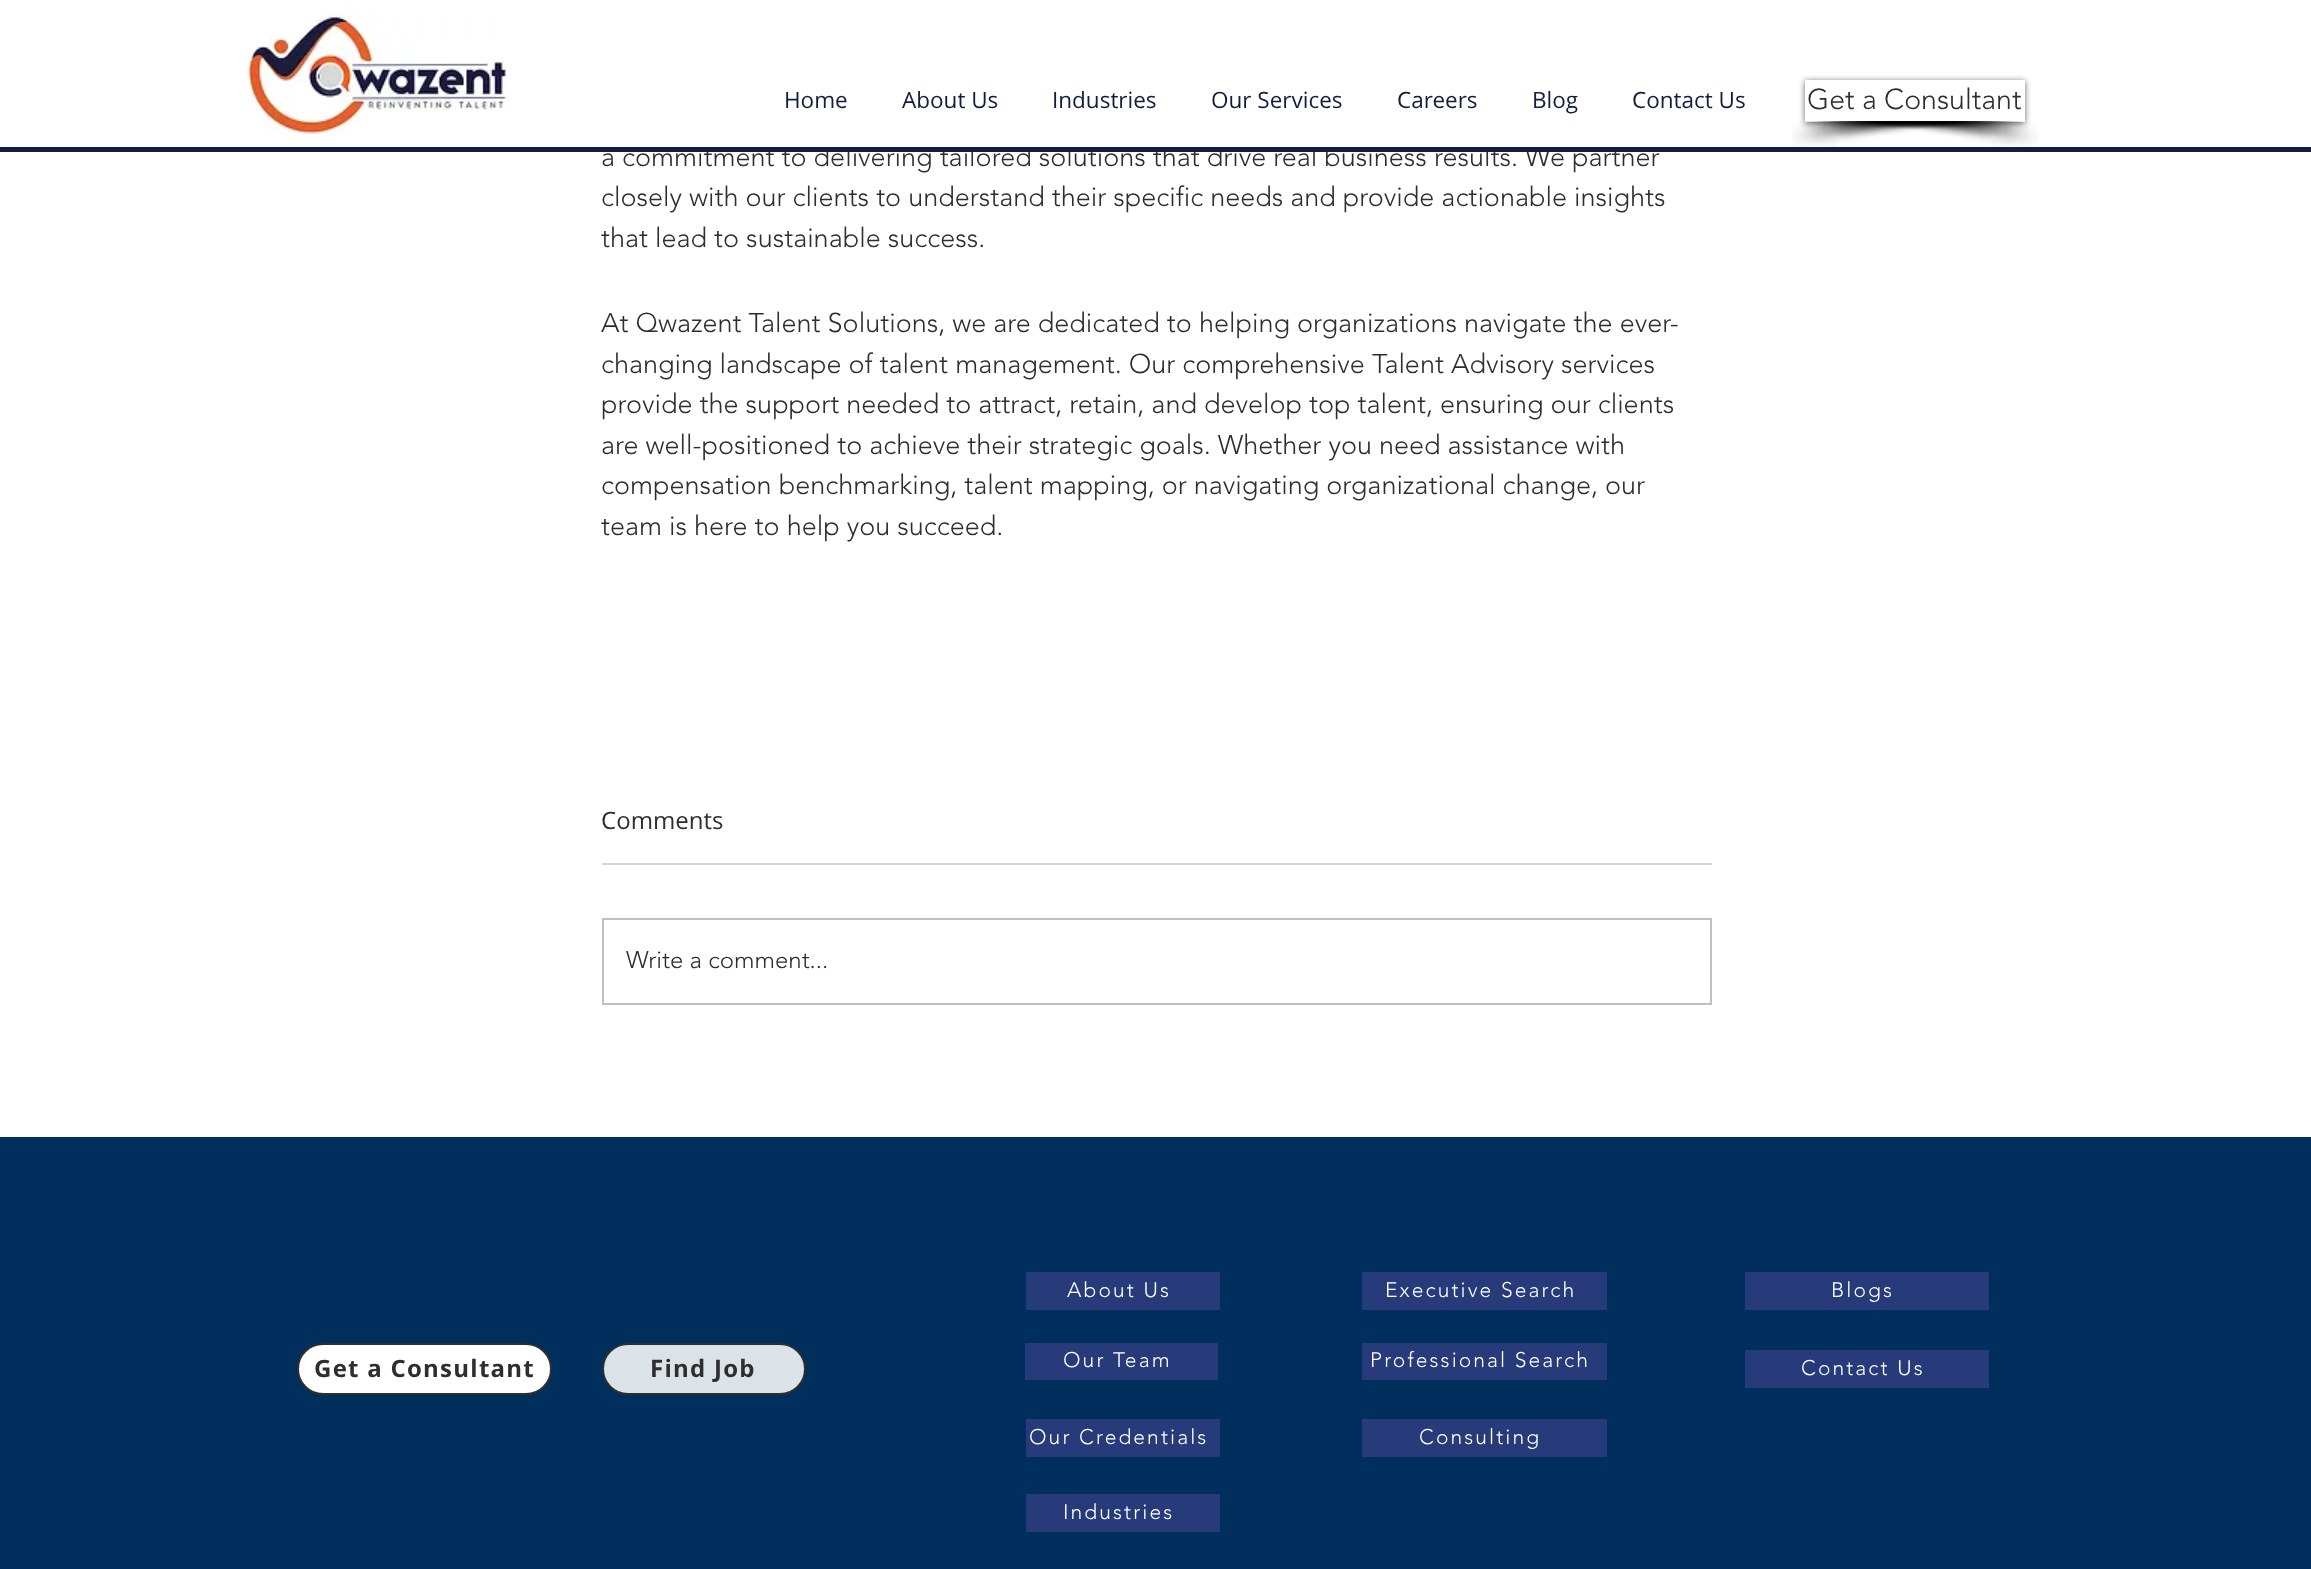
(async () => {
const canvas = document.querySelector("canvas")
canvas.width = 2311
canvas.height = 1569
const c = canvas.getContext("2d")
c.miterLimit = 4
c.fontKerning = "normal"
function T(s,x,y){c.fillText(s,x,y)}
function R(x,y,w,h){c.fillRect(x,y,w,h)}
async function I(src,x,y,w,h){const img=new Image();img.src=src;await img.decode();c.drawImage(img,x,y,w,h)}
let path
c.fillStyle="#fff"
R(0,0,2311,1569)
await I("1.png",244,13,265,122)
c.font="22.5px Open Sans"
c.fillStyle="#141d3d"
T("Home",784,108)
T("About Us",902,108)
T("Industries",1052,108)
T("Our Services",1211,108)
T("Careers",1397,108)
T("Blog",1532,108)
T("Contact Us",1632,108)
await I("2.png",1792,121,230,26)
await I("3.png",1808,121,230,26)
c.save()
path = new Path2D("M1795 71h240v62h-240zm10 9h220v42h-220z")
c.clip(path,"evenodd")
c.fillStyle="#00000099"
c.filter="blur(3px)"
c.beginPath()
c.rect(1805,81,220,42)
c.fill()
c.filter="none"
c.restore()
c.font="300 28.5px 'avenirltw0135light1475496'"
c.fillStyle="#2f2e2e"
T("Get a Consultant",1807,109)
c.font="300 27px 'avenirltw0135light1475496'"
T("a commitment to delivering tailored solutions that drive real business results. We partner",601,166)
c.fillStyle="#fff"
R(826,145,724,2)
c.fillStyle="#141d3d"
R(0,147,2311,5)
c.fillStyle="#2f2e2e"
T("closely with our clients to understand their specific needs and provide actionable insights",601,206)
T("that lead to sustainable success.",601,247)
T("At Qwazent Talent Solutions, we are dedicated to helping organizations navigate the ever-",601,332)
T("changing landscape of talent management. Our comprehensive Talent Advisory services",601,373)
T("provide the support needed to attract, retain, and develop top talent, ensuring our clients",601,413)
T("are well-positioned to achieve their strategic goals. Whether you need assistance with",601,454)
T("compensation benchmarking, talent mapping, or navigating organizational change, our",601,494)
T("team is here to help you succeed.",601,535)
c.font="24px Open Sans"
T("Comments",601,829)
c.fillStyle="#d5d5d5"
R(602,863,1110,2)
c.strokeStyle="#c1c0c0"
c.lineWidth=2
c.strokeRect(603,919,1108,85)
c.font="300 24px 'avenirltw0135light1475496'"
c.fillStyle="#2f2e2e"
T("Write a comment...",626,968)
c.fillStyle="#002e5d"
R(0,1137,2311,432)
c.fillStyle="#273b7b"
R(1026,1272,194,38)
c.letterSpacing="2.1px"
c.font="300 21px 'avenirltw0135light1475496'"
c.fillStyle="#fff"
T("About Us",1067,1297)
c.fillStyle="#273b7b"
R(1362,1272,245,38)
c.fillStyle="#fff"
T("Executive Search",1385,1297)
c.fillStyle="#273b7b"
R(1745,1272,244,38)
c.fillStyle="#fff"
T("Blogs",1831,1297)
c.beginPath()
c.roundRect(298,1344,253,50,25)
c.fill()
c.strokeStyle="#2f2e2e"
c.stroke()
c.letterSpacing="1.25px"
c.font="bold 24px Open Sans"
c.fillStyle="#2f2e2e"
T("Get a Consultant",314,1377)
c.fillStyle="#dbe2e8"
c.beginPath()
c.roundRect(603,1344,202,50,25)
c.fill()
c.stroke()
c.fillStyle="#2f2e2e"
T("Find Job",650,1377)
c.fillStyle="#273b7b"
R(1025,1343,193,37)
c.letterSpacing="2.1px"
c.font="300 21px 'avenirltw0135light1475496'"
c.fillStyle="#fff"
T("Our Team",1063,1367)
c.fillStyle="#273b7b"
R(1362,1343,245,37)
c.fillStyle="#fff"
T("Professional Search",1370,1367)
c.fillStyle="#273b7b"
R(1745,1350,244,38)
c.fillStyle="#fff"
T("Contact Us",1801,1375)
c.fillStyle="#273b7b"
R(1026,1419,194,38)
c.fillStyle="#fff"
T("Our Credentials",1029,1444)
c.fillStyle="#273b7b"
R(1362,1419,245,38)
c.fillStyle="#fff"
T("Consulting",1419,1444)
c.fillStyle="#273b7b"
R(1026,1494,194,38)
c.fillStyle="#fff"
T("Industries",1063,1519)
})()
